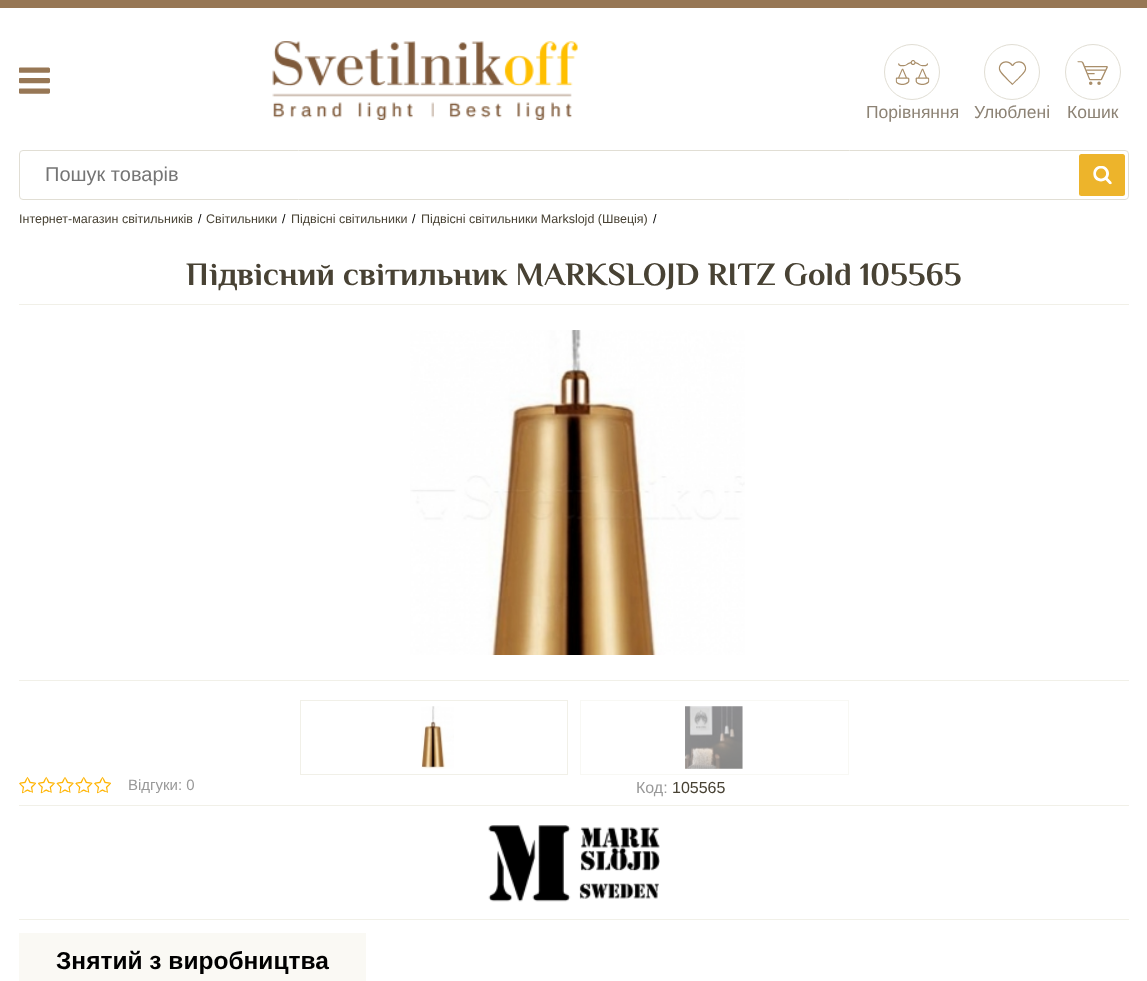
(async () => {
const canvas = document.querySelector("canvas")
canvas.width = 1147
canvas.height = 981
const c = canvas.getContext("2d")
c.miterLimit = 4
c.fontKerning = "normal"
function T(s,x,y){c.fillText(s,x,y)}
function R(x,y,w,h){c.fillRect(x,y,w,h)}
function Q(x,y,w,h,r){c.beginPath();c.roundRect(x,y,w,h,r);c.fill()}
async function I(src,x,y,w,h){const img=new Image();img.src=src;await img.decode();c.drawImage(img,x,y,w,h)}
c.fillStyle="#fff"
R(0,0,1147,981)
c.fillStyle="#977755"
R(0,0,1147,8)
await I("1.png",19,67,31,27)
await I("2.png",272,41,306,79)
c.beginPath()
c.arc(912,72,27.5,0,7)
c.strokeStyle="#e1ded4"
c.stroke()
await I("3.png",895,60,35,25)
c.font="17.5px Arimo"
c.fillStyle="#8d8375"
T("Порівняння",866,118)
c.beginPath()
c.arc(1012,72,27.5,0,7)
c.stroke()
await I("4.png",998,61,29,24)
T("Улюблені",974,118)
c.beginPath()
c.arc(1093,72,27.5,0,7)
c.stroke()
await I("5.png",1077,61,31,24)
T("Кошик",1067,118)
c.beginPath()
c.roundRect(19.5,150.5,1109,49,3.5)
c.stroke()
c.font="20px Arimo"
c.fillStyle="#757575"
T("Пошук товарів",45,181)
c.fillStyle="#edb42b"
Q(1079,154,46,42,2.5)
await I("6.png",1093,166,19,19)
c.font="12.5px Arimo"
c.fillStyle="#484234"
T("Інтернет-магазин світильників",19,223)
c.fillStyle="#000"
T("/",198,223)
c.fillStyle="#484234"
T("Світильники",206,223)
c.fillStyle="#000"
T("/",282,223)
c.fillStyle="#484234"
T("Підвісні світильники",291,223)
c.fillStyle="#000"
T("/",412,223)
c.fillStyle="#484234"
T("Підвісні світильники Markslojd (Швеція)",421,223)
c.fillStyle="#000"
T("/",653,223)
c.font="bold 32.5px Philosopher"
c.fillStyle="#484234"
T("Підвісний світильник MARKSLOJD RITZ Gold 105565",186,285)
c.fillStyle="#f1f0e8"
R(19,304,1110,1)
R(19,680,1110,1)
await I("7.png",410,330,335,325)
c.strokeStyle="#f1f0e8"
c.strokeRect(300.5,700.5,267,74)
await I("8.png",421,706,33,63)
c.strokeStyle="#f8f8f4"
c.strokeRect(580.5,700.5,268,74)
await I("9.png",685,706,58,63)
R(19,805,1110,1)
await I("10.png",19,776,17,18)
await I("11.png",38,776,17,18)
await I("12.png",56,777,18,17)
await I("13.png",75,776,18,18)
await I("10.png",94,776,17,18)
c.font="15px Arimo"
c.fillStyle="#999"
T("Відгуки: 0",128,790)
c.font="16px Arimo"
T("Код:",636,793)
c.fillStyle="#484234"
T("105565",672,793)
c.fillStyle="#f1f0e8"
R(19,919,1110,1)
await I("14.png",488,825,172,77)
c.fillStyle="#faf9f4"
R(19,933,347,48)
c.font="bold 24.5px Arimo"
c.fillStyle="#000"
T("Знятий з виробництва",56,969)
})()
